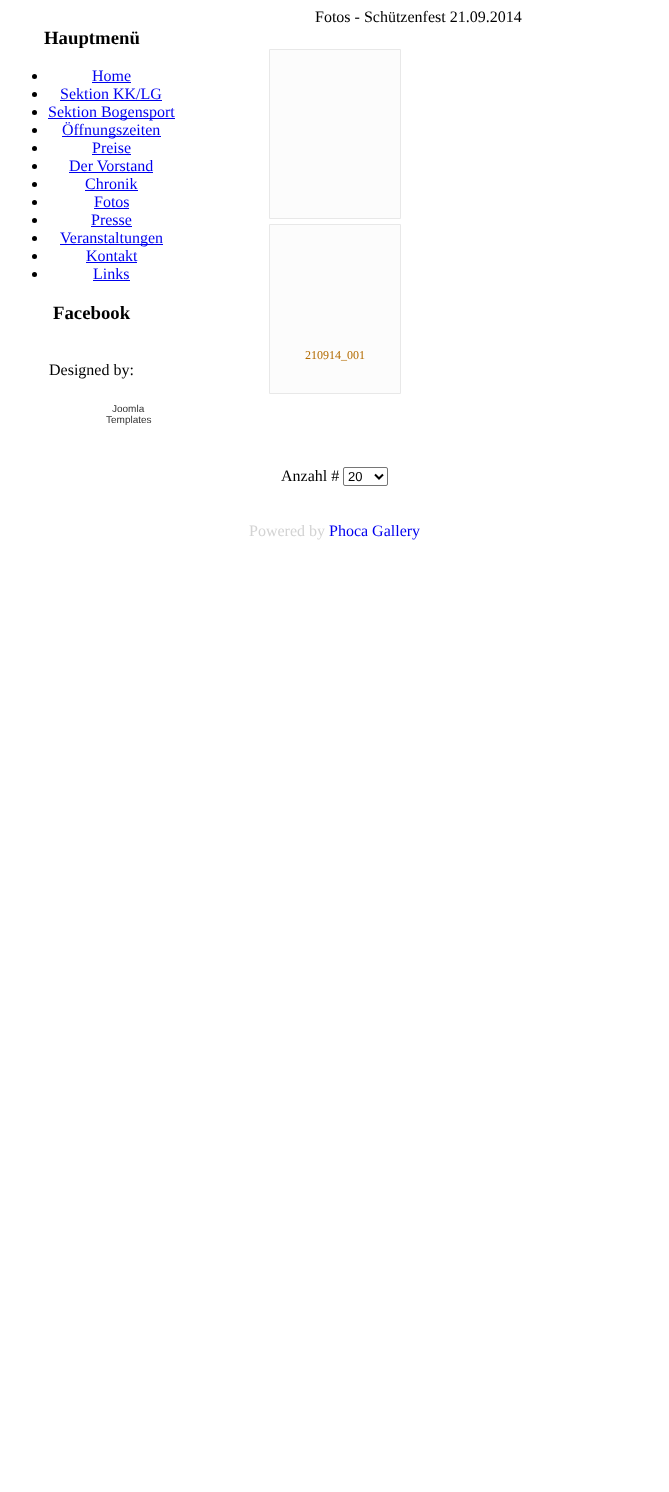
(async () => {
const canvas = document.querySelector("canvas")
canvas.width = 669
canvas.height = 1492
const c = canvas.getContext("2d")
c.miterLimit = 4
c.fontKerning = "normal"
function T(s,x,y){c.fillText(s,x,y)}
function R(x,y,w,h){c.fillRect(x,y,w,h)}
let path
c.fillStyle="#fff"
R(0,0,669,1492)
c.font="bold 18.75px Liberation Serif"
c.fillStyle="#000"
T("Hauptmenü",44,44)
c.beginPath()
c.arc(34.5,76.5,2.5,0,7)
c.fill()
c.font="16px Liberation Serif"
c.fillStyle="#00e"
T("Home",92,81)
R(92,82,39,1)
c.fillStyle="#000"
c.beginPath()
c.arc(34.5,94.5,2.5,0,7)
c.fill()
c.fillStyle="#00e"
T("Sektion KK/LG",60,99)
R(60,100,102,1)
c.fillStyle="#000"
c.beginPath()
c.arc(34.5,112.5,2.5,0,7)
c.fill()
c.fillStyle="#00e"
R(48,118,127,1)
T("Sektion Bogensport",48,117)
c.fillStyle="#000"
c.beginPath()
c.arc(34.5,130.5,2.5,0,7)
c.fill()
c.fillStyle="#00e"
R(62,136,99,1)
T("Öffnungszeiten",62,135)
c.fillStyle="#000"
c.beginPath()
c.arc(34.5,148.5,2.5,0,7)
c.fill()
c.fillStyle="#00e"
T("Preise",92,153)
R(92,154,39,1)
c.fillStyle="#000"
c.beginPath()
c.arc(34.5,166.5,2.5,0,7)
c.fill()
c.fillStyle="#00e"
T("Der Vorstand",69,171)
R(69,172,84,1)
c.fillStyle="#000"
c.beginPath()
c.arc(34.5,184.5,2.5,0,7)
c.fill()
c.fillStyle="#00e"
T("Chronik",85,189)
R(85,190,53,1)
c.fillStyle="#000"
c.beginPath()
c.arc(34.5,202.5,2.5,0,7)
c.fill()
c.fillStyle="#00e"
T("Fotos",94,207)
R(94,208,35,1)
c.fillStyle="#000"
c.beginPath()
c.arc(34.5,220.5,2.5,0,7)
c.fill()
c.fillStyle="#00e"
T("Presse",91,225)
R(91,226,41,1)
c.fillStyle="#000"
c.beginPath()
c.arc(34.5,238.5,2.5,0,7)
c.fill()
c.fillStyle="#00e"
R(60,244,103,1)
T("Veranstaltungen",60,243)
c.fillStyle="#000"
c.beginPath()
c.arc(34.5,256.5,2.5,0,7)
c.fill()
c.fillStyle="#00e"
T("Kontakt",86,261)
R(86,262,51,1)
c.fillStyle="#000"
c.beginPath()
c.arc(34.5,274.5,2.5,0,7)
c.fill()
c.fillStyle="#00e"
T("Links",93,279)
R(93,280,37,1)
c.font="bold 18.75px Liberation Serif"
c.fillStyle="#000"
T("Facebook",53,319)
c.font="16px Liberation Serif"
T("Designed by:",49,375)
c.font="10px Liberation Sans"
c.fillStyle="#333"
T("Joomla",112,412)
T("Templates",106,423)
c.font="16px Liberation Serif"
c.fillStyle="#000"
T("Fotos - Schützenfest 21.09.2014",315,22)
c.fillStyle="#fcfcfc"
c.beginPath()
c.rect(269.5,49.5,131,169)
c.fill()
c.strokeStyle="#e8e8e8"
c.stroke()
c.beginPath()
c.rect(269.5,224.5,131,169)
c.fill()
c.stroke()
c.font="12px Liberation Serif"
c.fillStyle="#b36b00"
T("210914_001",305,359)
c.font="16px Liberation Serif"
c.fillStyle="#000"
T("Anzahl #",281,481)
c.beginPath()
c.roundRect(343.5,467.5,44,18,1.5)
c.strokeStyle="#767676"
c.stroke()
path = new Path2D("M375 474.5l4 4l4-4")
c.strokeStyle="#000"
c.lineWidth=2
c.stroke(path)
c.font="13px Liberation Sans"
T("20",348,481)
c.font="16px Liberation Serif"
c.fillStyle="#d3d3d3"
T("Powered by",249,536)
c.fillStyle="#00e"
T("Phoca Gallery",329,536)
})()
